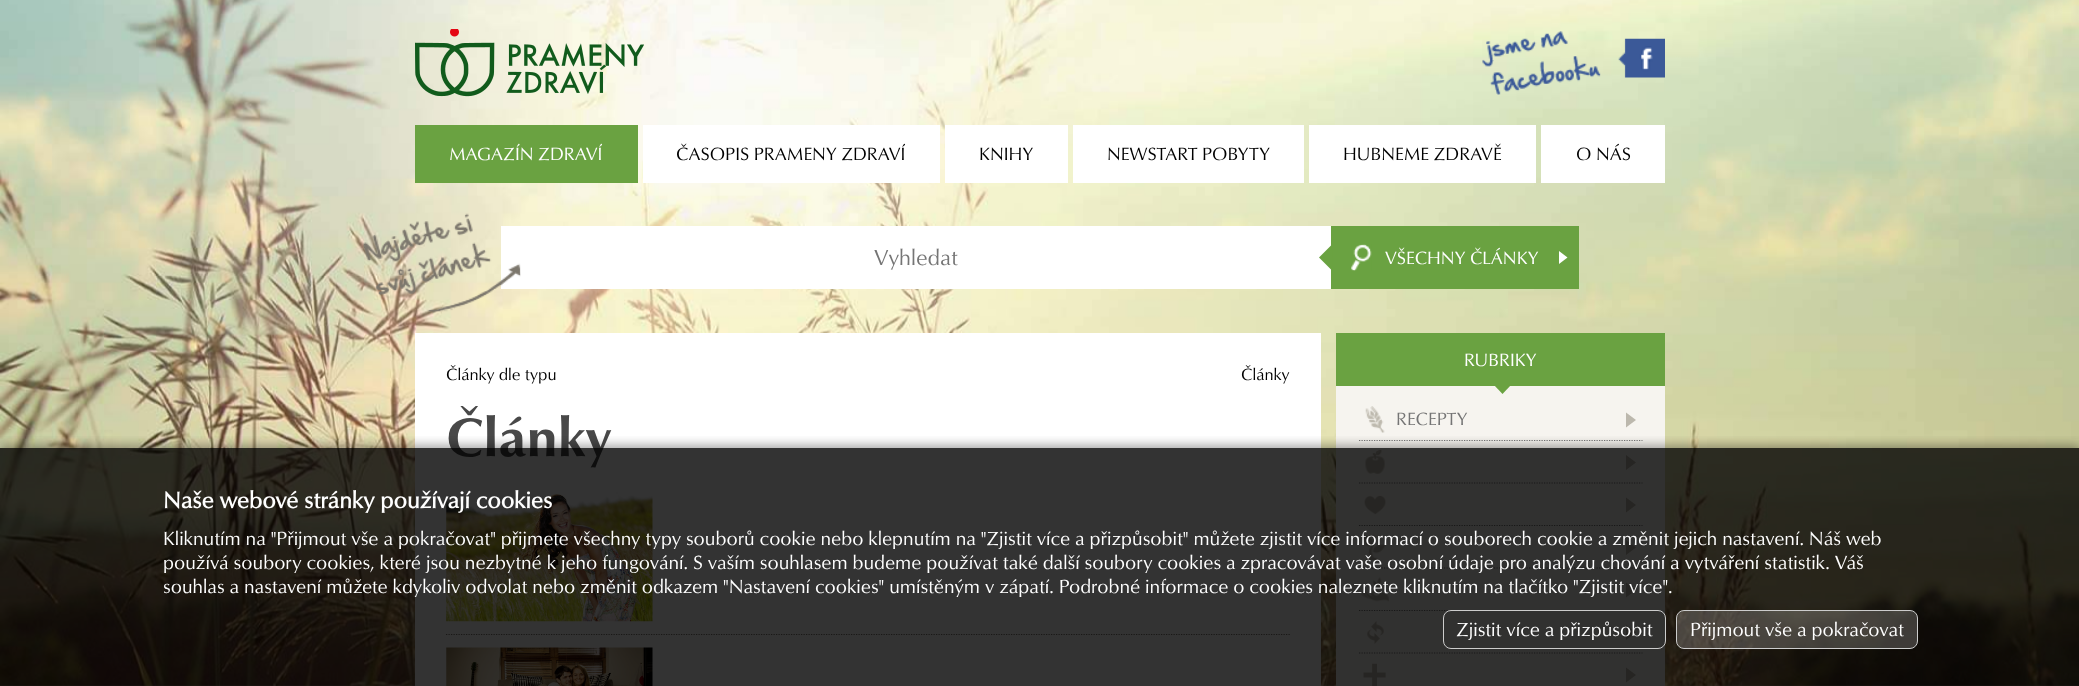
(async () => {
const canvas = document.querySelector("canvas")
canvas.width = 2079
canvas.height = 686
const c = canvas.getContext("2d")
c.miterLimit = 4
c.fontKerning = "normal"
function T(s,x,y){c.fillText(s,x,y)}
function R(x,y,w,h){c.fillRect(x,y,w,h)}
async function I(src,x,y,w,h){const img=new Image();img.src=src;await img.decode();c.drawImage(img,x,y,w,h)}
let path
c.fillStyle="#fff"
R(0,0,2079,686)
await I("1.png",0,0,2079,686)
await I("2.png",415,29,229,68)
await I("3.png",1482,31,183,64)
c.fillStyle="#6aa241"
R(415,125,223,58)
c.font="16.25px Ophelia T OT"
c.fillStyle="#fff"
T("MAGAZÍN ZDRAVÍ",449,160)
R(643,125,297,58)
c.fillStyle="#000"
T("ČASOPIS PRAMENY ZDRAVÍ",676,160)
c.fillStyle="#fff"
R(945,125,123,58)
c.fillStyle="#000"
T("KNIHY",979,160)
c.fillStyle="#fff"
R(1073,125,231,58)
c.fillStyle="#000"
T("NEWSTART POBYTY",1107,160)
c.fillStyle="#fff"
R(1309,125,227,58)
c.fillStyle="#000"
T("HUBNEME ZDRAVĚ",1343,160)
c.fillStyle="#fff"
R(1541,125,124,58)
c.fillStyle="#000"
T("O NÁS",1576,160)
c.fillStyle="#fff"
R(501,226,830,63)
await I("4.png",363,213,158,101)
c.font="20px Ophelia T OT"
c.fillStyle="#757575"
T("Vyhledat",874,265)
c.fillStyle="#6aa241"
R(1331,226,248,63)
await I("5.png",1351,244,21,27)
path = new Path2D("M1332.5 244v27l-13.5-13.5z")
c.fill(path)
c.font="16.25px Ophelia T OT"
c.fillStyle="#fff"
T("VŠECHNY ČLÁNKY",1385,264)
path = new Path2D("M1559 264v-13l8.5 6.5z")
c.fill(path)
R(415,333,906,353)
c.font="15px Ophelia T OT"
c.fillStyle="#000"
T("Články dle typu",446,380)
T("Články",1241,380)
c.font="500 50px Ophelia T OT"
c.fillStyle="#484848"
T("Články",446,456)
path = new Path2D("M446 634.5h844")
c.strokeStyle="#7c7970"
c.lineWidth=1.2
c.setLineDash([1.25,1.25])
c.stroke(path)
await I("6.png",446,492,207,130)
await I("7.png",446,647,207,39)
c.fillStyle="#6aa241"
R(1336,333,329,53)
c.font="16.25px Ophelia T OT"
c.fillStyle="#fff"
T("RUBRIKY",1464,366)
c.fillStyle="#f6f4ef"
R(1336,386,329,300)
c.fillStyle="#6aa241"
path = new Path2D("M1494 385h17l-8.5 9z")
c.fill(path)
await I("8.png",1365,406,20,27)
c.fillStyle="#757575"
T("RECEPTY",1396,425)
c.fillStyle="#bcb8ad"
path = new Path2D("M1626 427.5v-15l10 7.5z")
c.fill(path)
path = new Path2D("M1359 440.5h283.5")
c.strokeStyle="#767676"
c.stroke(path)
await I("9.png",1365,450,20,24)
path = new Path2D("M1626 470v-15l10 7.5z")
c.fill(path)
path = new Path2D("M1359 483h283.5")
c.stroke(path)
await I("10.png",1364,495,22,20)
path = new Path2D("M1626 512.5v-15l10 7.5z")
c.fill(path)
path = new Path2D("M1359 525.5h283.5")
c.stroke(path)
await I("11.png",1363,533,23,27)
path = new Path2D("M1626 555v-15l10 7.5z")
c.fill(path)
path = new Path2D("M1359 568h283.5")
c.stroke(path)
await I("12.png",1361,577,28,25)
path = new Path2D("M1626 597.5v-15l10 7.5z")
c.fill(path)
path = new Path2D("M1359 610.5h283.5")
c.stroke(path)
await I("13.png",1367,621,17,23)
path = new Path2D("M1626 640v-15l10 7.5z")
c.fill(path)
path = new Path2D("M1359 653h283.5")
c.stroke(path)
await I("14.png",1363,663,23,23)
path = new Path2D("M1626 682.5v-15l10 7.5z")
c.fill(path)
c.save()
c.beginPath()
c.rect(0,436,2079,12)
c.clip()
c.fillStyle="#00000066"
c.filter="blur(6px)"
c.beginPath()
c.rect(-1,446,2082,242)
c.fill()
c.filter="none"
c.restore()
c.fillStyle="#000000cc"
R(0,448,2079,238)
c.font="bold 21px Ophelia T OT"
c.fillStyle="#fff"
T("Naše webové stránky používají cookies",163,508)
c.font="17.5px Ophelia T OT"
T("Kliknutím na \"Přijmout vše a pokračovat\" přijmete všechny typy souborů cookie nebo klepnutím na \"Zjistit více a přizpůsobit\" můžete zjistit více informací o souborech cookie a změnit jejich nastavení. Náš web",163,545)
T("používá soubory cookies, které jsou nezbytné k jeho fungování. S vaším souhlasem budeme používat také další soubory cookies a zpracovávat vaše osobní údaje pro analýzu chování a vytváření statistik. Váš",163,569)
T("souhlas a nastavení můžete kdykoliv odvolat nebo změnit odkazem \"Nastavení cookies\" umístěným v zápatí. Podrobné informace o cookies naleznete kliknutím na tlačítko \"Zjistit více\".",163,593)
c.beginPath()
c.roundRect(1443.5,610.5,222,38,7.5)
c.strokeStyle="#ccc"
c.lineWidth=1
c.setLineDash([])
c.stroke()
T("Zjistit více a přizpůsobit",1456,636)
c.fillStyle="#ffffff33"
c.beginPath()
c.roundRect(1676.5,610.5,241,38,7.5)
c.fill()
c.stroke()
c.fillStyle="#fff"
T("Přijmout vše a pokračovat",1690,636)
})()
